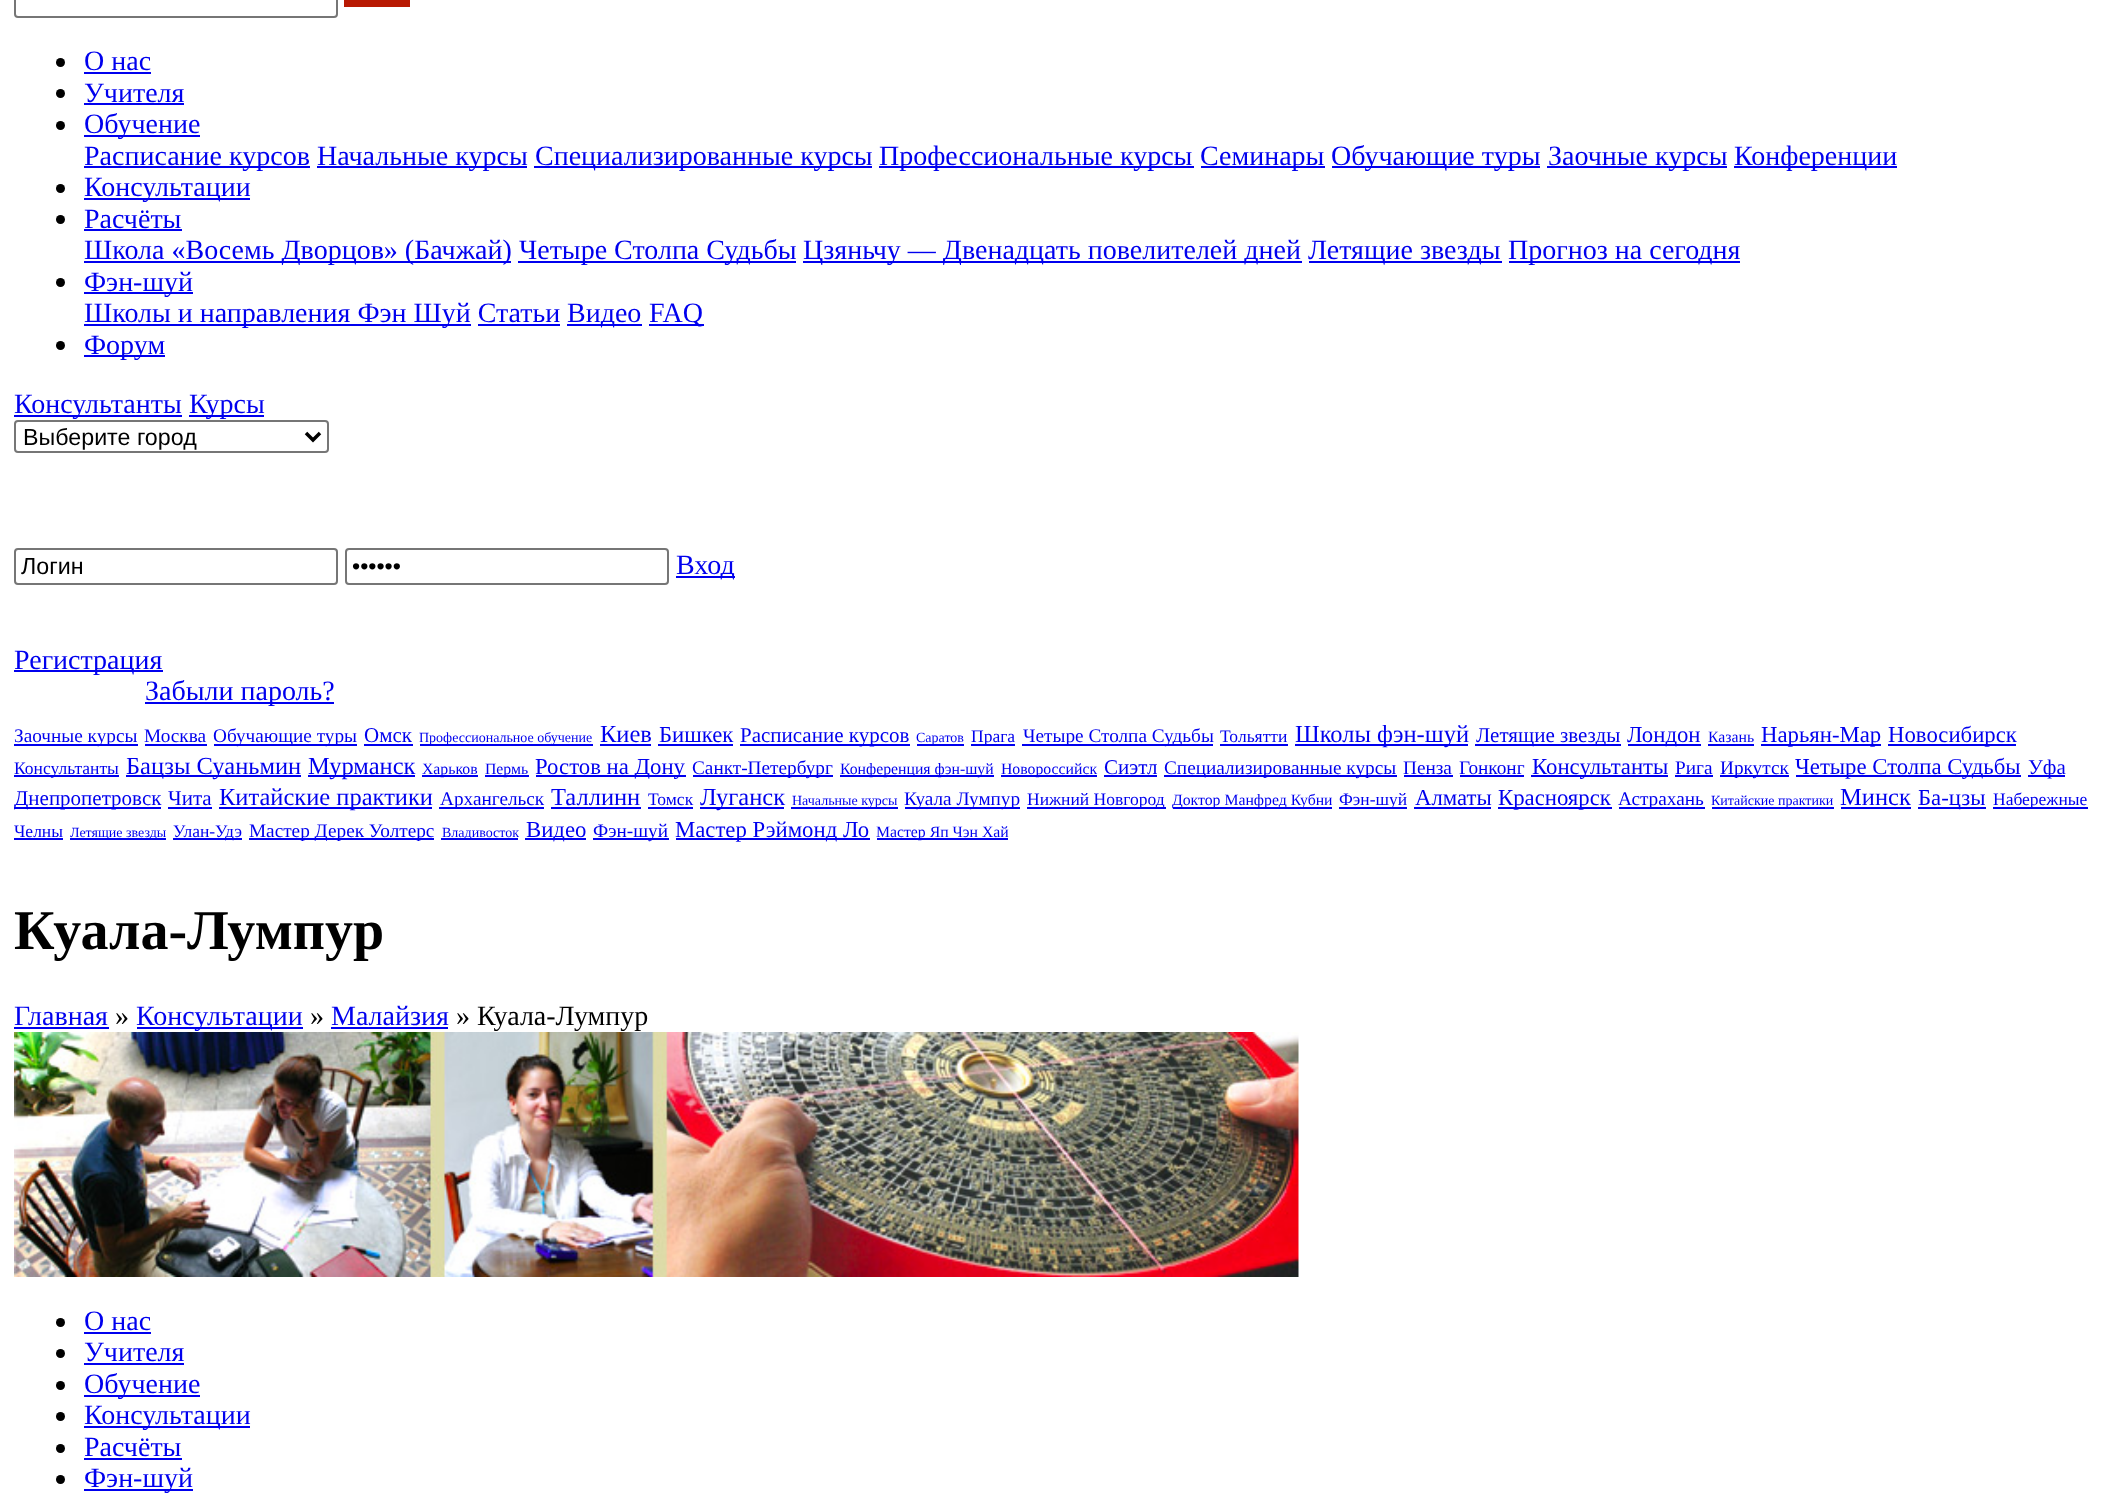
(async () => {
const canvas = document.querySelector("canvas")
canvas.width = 2113
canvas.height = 1504
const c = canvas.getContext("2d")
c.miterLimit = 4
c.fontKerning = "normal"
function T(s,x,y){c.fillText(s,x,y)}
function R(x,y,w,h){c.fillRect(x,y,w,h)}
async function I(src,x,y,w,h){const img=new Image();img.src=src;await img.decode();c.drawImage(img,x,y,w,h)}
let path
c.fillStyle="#fff"
R(0,0,2113,1504)
c.beginPath()
c.roundRect(15,-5,322,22,3)
c.strokeStyle="#767676"
c.lineWidth=2
c.stroke()
c.fillStyle="#b81903"
R(344,0,66,7)
c.fillStyle="#000"
c.beginPath()
c.arc(60.5,62.5,4.5,0,7)
c.fill()
c.font="28px Liberation Serif"
c.fillStyle="#00e"
T("О нас",84,70)
R(84,72,67,2)
c.fillStyle="#000"
c.beginPath()
c.arc(60.5,93.5,4.5,0,7)
c.fill()
c.fillStyle="#00e"
T("Учителя",84,102)
R(84,103,100,2)
c.fillStyle="#000"
c.beginPath()
c.arc(60.5,125.5,4.5,0,7)
c.fill()
c.fillStyle="#00e"
R(84,135,116,2)
T("Обучение",84,133)
R(84,166,226,2)
T("Расписание курсов",84,165)
R(317,166,210,2)
T("Начальные курсы",317,165)
R(534,166,338,2)
T("Специализированные курсы",535,165)
R(879,166,315,2)
T("Профессиональные курсы",879,165)
R(1201,166,124,2)
T("Семинары",1200,165)
R(1332,166,208,2)
T("Обучающие туры",1331,165)
R(1547,166,180,2)
T("Заочные курсы",1548,165)
R(1734,166,163,2)
T("Конференции",1734,165)
c.fillStyle="#000"
c.beginPath()
c.arc(60.5,188.5,4.5,0,7)
c.fill()
c.fillStyle="#00e"
R(84,198,166,2)
T("Консультации",84,196)
c.fillStyle="#000"
c.beginPath()
c.arc(60.5,219.5,4.5,0,7)
c.fill()
c.fillStyle="#00e"
T("Расчёты",84,228)
R(84,229,98,2)
R(84,261,427,2)
T("Школа «Восемь Дворцов» (Бачжай)",84,259)
R(518,261,278,2)
T("Четыре Столпа Судьбы",519,259)
R(803,261,499,2)
T("Цзяньчу — Двенадцать повелителей дней",803,259)
R(1309,261,193,2)
T("Летящие звезды",1308,259)
R(1509,261,231,2)
T("Прогноз на сегодня",1508,259)
c.fillStyle="#000"
c.beginPath()
c.arc(60.5,282.5,4.5,0,7)
c.fill()
c.fillStyle="#00e"
R(84,292,109,2)
T("Фэн-шуй",84,291)
R(84,324,387,2)
T("Школы и направления Фэн Шуй Статьи",84,322)
R(567,324,75,2)
T("Видео",567,322)
R(649,324,55,2)
T("FAQ",649,322)
R(478,324,82,2)
c.fillStyle="#000"
c.beginPath()
c.arc(60.5,345.5,4.5,0,7)
c.fill()
c.fillStyle="#00e"
R(84,355,81,2)
T("Форум",84,354)
R(14,415,168,2)
T("Консультанты",14,413)
R(189,415,75,2)
T("Курсы",189,413)
c.beginPath()
c.roundRect(15,421,313,31,3)
c.stroke()
path = new Path2D("M306 433l7 7l7-7")
c.strokeStyle="#000"
c.lineWidth=3.5
c.stroke(path)
c.font="23.25px Liberation Sans"
c.fillStyle="#000"
T("Выберите город",23,445)
c.beginPath()
c.roundRect(15,549,322,35,3)
c.strokeStyle="#767676"
c.lineWidth=2
c.stroke()
T("Логин",21,574)
c.beginPath()
c.roundRect(346,549,322,35,3)
c.stroke()
T("••••••",352,574)
c.fillStyle="#00e"
R(676,576,59,2)
c.font="28px Liberation Serif"
T("Вход",676,574)
R(14,670,149,2)
T("Регистрация",14,669)
R(145,702,189,2)
T("Забыли пароль?",145,700)
R(14,744,124,2)
c.font="19.25px Liberation Serif"
T("Заочные курсы",14,742)
T("Москва",144,742)
R(145,744,62,2)
R(214,744,143,2)
T("Обучающие туры",213,742)
c.font="21px Liberation Serif"
T("Омск",364,742)
R(364,744,49,2)
R(420,744,173,2)
c.font="14px Liberation Serif"
T("Профессиональное обучение",419,742)
c.font="24.5px Liberation Serif"
T("Киев",600,742)
R(600,744,51,2)
c.font="22.75px Liberation Serif"
T("Бишкек",659,742)
R(658,744,75,2)
R(740,744,170,2)
c.font="21px Liberation Serif"
T("Расписание курсов",740,742)
R(917,744,47,2)
c.font="14px Liberation Serif"
T("Саратов",916,742)
R(971,744,44,2)
c.font="17.5px Liberation Serif"
T("Прага",971,742)
R(1022,744,191,2)
c.font="19.25px Liberation Serif"
T("Четыре Столпа Судьбы",1023,742)
c.font="17.5px Liberation Serif"
T("Тольятти",1220,742)
R(1220,744,68,2)
R(1295,744,173,2)
c.font="24.5px Liberation Serif"
T("Школы фэн-шуй",1295,742)
R(1475,744,146,2)
c.font="21px Liberation Serif"
T("Летящие звезды",1476,742)
R(1628,744,73,2)
c.font="22.75px Liberation Serif"
T("Лондон",1627,742)
c.font="15.75px Liberation Serif"
T("Казань",1708,742)
R(1708,744,46,2)
R(1761,744,120,2)
c.font="22.75px Liberation Serif"
T("Нарьян-Мар",1761,742)
R(1888,744,128,2)
T("Новосибирск",1888,742)
R(14,775,105,2)
c.font="17.5px Liberation Serif"
T("Консультанты",14,774)
R(126,775,175,2)
c.font="24.5px Liberation Serif"
T("Бацзы Суаньмин",126,774)
R(308,775,107,2)
T("Мурманск",308,774)
R(422,775,56,2)
c.font="15.75px Liberation Serif"
T("Харьков",422,774)
R(485,775,44,2)
T("Пермь",485,774)
R(536,775,150,2)
c.font="22.75px Liberation Serif"
T("Ростов на Дону",535,774)
R(693,775,140,2)
c.font="19.25px Liberation Serif"
T("Санкт-Петербург",692,774)
R(840,775,154,2)
c.font="15.75px Liberation Serif"
T("Конференция фэн-шуй",840,774)
R(1001,775,96,2)
T("Новороссийск",1001,774)
c.font="21px Liberation Serif"
T("Сиэтл",1104,774)
R(1104,775,53,2)
R(1164,775,233,2)
c.font="19.25px Liberation Serif"
T("Специализированные курсы",1164,774)
T("Пенза",1403,774)
R(1404,775,49,2)
T("Гонконг",1459,774)
R(1460,775,64,2)
R(1531,775,137,2)
c.font="22.75px Liberation Serif"
T("Консультанты",1532,774)
c.font="19.25px Liberation Serif"
T("Рига",1675,774)
R(1675,775,38,2)
R(1720,775,69,2)
T("Иркутск",1720,774)
R(1796,775,225,2)
c.font="22.75px Liberation Serif"
T("Четыре Столпа Судьбы",1795,774)
R(2028,775,37,2)
c.font="21px Liberation Serif"
T("Уфа",2028,774)
R(14,807,147,2)
T("Днепропетровск",14,805)
T("Чита",168,805)
R(168,807,44,2)
R(219,807,213,2)
c.font="24.5px Liberation Serif"
T("Китайские практики",219,805)
R(439,807,105,2)
c.font="19.25px Liberation Serif"
T("Архангельск",440,805)
c.font="24.5px Liberation Serif"
T("Таллинн",551,805)
R(551,807,90,2)
c.font="17.5px Liberation Serif"
T("Томск",648,805)
R(648,807,45,2)
R(700,807,84,2)
c.font="24.5px Liberation Serif"
T("Луганск",700,805)
R(791,807,107,2)
c.font="14px Liberation Serif"
T("Начальные курсы",792,805)
R(905,807,115,2)
c.font="19.25px Liberation Serif"
T("Куала Лумпур",904,805)
R(1027,807,139,2)
c.font="17.5px Liberation Serif"
T("Нижний Новгород",1027,805)
R(1173,807,159,2)
c.font="15.75px Liberation Serif"
T("Доктор Манфред Кубни",1172,805)
R(1339,807,68,2)
c.font="17.5px Liberation Serif"
T("Фэн-шуй",1339,805)
c.font="22.75px Liberation Serif"
T("Алматы",1415,805)
R(1414,807,77,2)
R(1498,807,114,2)
T("Красноярск",1498,805)
R(1619,807,86,2)
c.font="19.25px Liberation Serif"
T("Астрахань",1618,805)
R(1712,807,122,2)
c.font="14px Liberation Serif"
T("Китайские практики",1711,805)
c.font="24.5px Liberation Serif"
T("Минск",1840,805)
R(1841,807,70,2)
R(1918,807,68,2)
c.font="22.75px Liberation Serif"
T("Ба-цзы",1918,805)
R(1993,807,95,2)
c.font="17.5px Liberation Serif"
T("Набережные",1993,805)
T("Челны",14,837)
R(14,838,49,2)
R(70,838,96,2)
c.font="14px Liberation Serif"
T("Летящие звезды",70,837)
R(173,838,69,2)
c.font="17.5px Liberation Serif"
T("Улан-Удэ",173,837)
R(249,838,185,2)
c.font="19.25px Liberation Serif"
T("Мастер Дерек Уолтерс",249,837)
R(441,838,77,2)
c.font="14px Liberation Serif"
T("Владивосток",442,837)
R(525,838,61,2)
c.font="22.75px Liberation Serif"
T("Видео",526,837)
R(593,838,76,2)
c.font="19.25px Liberation Serif"
T("Фэн-шуй",593,837)
R(676,838,194,2)
c.font="22.75px Liberation Serif"
T("Мастер Рэймонд Ло",675,837)
R(877,838,131,2)
c.font="15.75px Liberation Serif"
T("Мастер Яп Чэн Хай",876,837)
c.font="bold 56px Liberation Serif"
c.fillStyle="#000"
T("Куала-Лумпур",14,949)
c.font="28px Liberation Serif"
c.fillStyle="#00e"
T("Главная",14,1025)
R(14,1027,95,2)
c.fillStyle="#000"
T("»",115,1025)
c.fillStyle="#00e"
R(137,1027,166,2)
T("Консультации",136,1025)
c.fillStyle="#000"
T("»",310,1025)
c.fillStyle="#00e"
T("Малайзия",331,1025)
R(331,1027,117,2)
c.fillStyle="#000"
T("» Куала-Лумпур",456,1025)
await I("1.png",14,1032,1285,245)
c.beginPath()
c.arc(60.5,1322.5,4.5,0,7)
c.fill()
c.fillStyle="#00e"
T("О нас",84,1330)
R(84,1332,67,2)
c.fillStyle="#000"
c.beginPath()
c.arc(60.5,1353.5,4.5,0,7)
c.fill()
c.fillStyle="#00e"
T("Учителя",84,1361)
R(84,1363,100,2)
c.fillStyle="#000"
c.beginPath()
c.arc(60.5,1385.5,4.5,0,7)
c.fill()
c.fillStyle="#00e"
R(84,1395,116,2)
T("Обучение",84,1393)
c.fillStyle="#000"
c.beginPath()
c.arc(60.5,1416.5,4.5,0,7)
c.fill()
c.fillStyle="#00e"
R(84,1426,166,2)
T("Консультации",84,1424)
c.fillStyle="#000"
c.beginPath()
c.arc(60.5,1448.5,4.5,0,7)
c.fill()
c.fillStyle="#00e"
T("Расчёты",84,1456)
R(84,1458,98,2)
c.fillStyle="#000"
c.beginPath()
c.arc(60.5,1479.5,4.5,0,7)
c.fill()
c.fillStyle="#00e"
R(84,1489,109,2)
T("Фэн-шуй",84,1487)
})()
